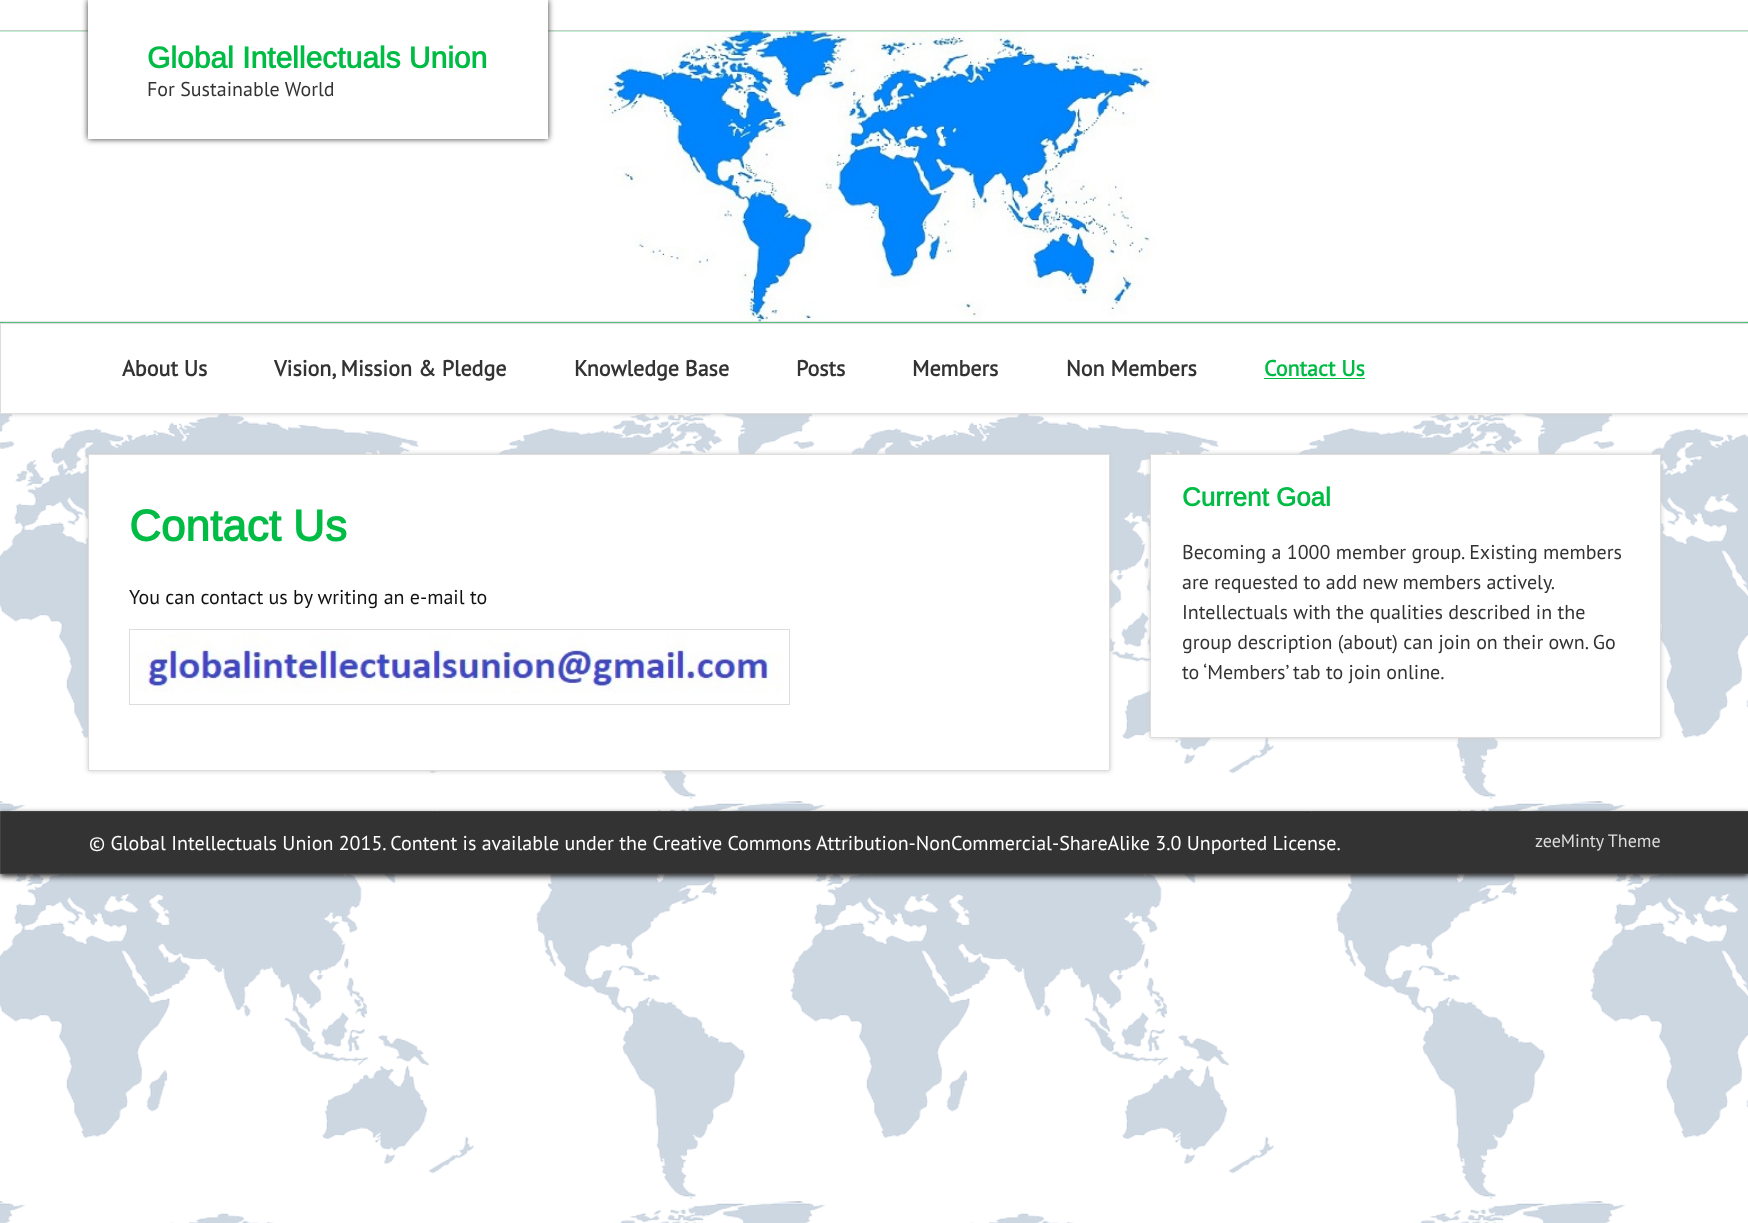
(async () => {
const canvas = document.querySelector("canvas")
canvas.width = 1748
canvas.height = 1223
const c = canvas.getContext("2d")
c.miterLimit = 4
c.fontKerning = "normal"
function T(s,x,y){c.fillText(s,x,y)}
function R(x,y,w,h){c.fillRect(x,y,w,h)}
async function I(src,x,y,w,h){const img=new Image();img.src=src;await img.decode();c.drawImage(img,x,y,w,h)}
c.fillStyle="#fff"
R(0,0,1748,1223)
await I("1.png",0,414,1748,809)
c.fillStyle="#00bc45"
R(0,31,1748,292)
c.fillStyle="#ccc"
R(0,30,1748,1)
c.filter="blur(2.5px)"
c.beginPath()
c.rect(0,323,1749,91)
c.fill()
c.filter="none"
c.fillStyle="#ddd"
R(0,321,1748,1)
await I("2.png",0,31,1748,291)
c.fillStyle="#333"
c.filter="blur(3px)"
c.beginPath()
c.rect(88,0,460,139)
c.fill()
c.filter="none"
c.fillStyle="#fff"
R(88,0,460,139)
c.font="bold 30px Arimo"
c.fillStyle="#00bc45"
T("Global Intellectuals Union",147,68)
c.font="20px PT Sans"
c.fillStyle="#333"
T("For Sustainable World",147,96)
c.fillStyle="#fff"
c.beginPath()
c.rect(.5,323.5,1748,90)
c.fill()
c.strokeStyle="#ddd"
c.stroke()
c.font="bold 22px PT Sans"
c.fillStyle="#333"
T("About Us",122,376)
T("Vision, Mission & Pledge",274,376)
T("Knowledge Base",574,376)
T("Posts",796,376)
T("Members",912,376)
T("Non Members",1066,376)
c.fillStyle="#00bc45"
T("Contact Us",1264,376)
R(1264,378,101,1)
c.fillStyle="#ccc"
c.filter="blur(2.5px)"
c.beginPath()
c.rect(88,454,1022,317)
c.fill()
c.filter="none"
c.fillStyle="#fff"
c.beginPath()
c.rect(88.5,454.5,1021,316)
c.fill()
c.stroke()
c.font="bold 44px Arimo"
c.fillStyle="#00bc45"
T("Contact Us",129,541)
c.font="20px PT Sans"
c.fillStyle="#111"
T("You can contact us by writing an e-mail to",129,604)
c.strokeRect(129.5,629.5,660,75)
await I("3.png",134,634,648,59)
c.fillStyle="#ccc"
c.filter="blur(2.5px)"
c.beginPath()
c.rect(1150,454,511,284)
c.fill()
c.filter="none"
c.fillStyle="#fff"
c.beginPath()
c.rect(1150.5,454.5,510,283)
c.fill()
c.stroke()
c.font="bold 26px Arimo"
c.fillStyle="#00bc45"
T("Current Goal",1182,506)
c.font="20px PT Sans"
c.fillStyle="#333"
T("Becoming a 1000 member group. Existing members",1182,559)
c.wordSpacing="-0.25px"
T("are requested to add new members actively.",1182,589)
c.wordSpacing="0px"
T("Intellectuals with the qualities described in the",1182,619)
T("group description (about) can join on their own. Go",1182,649)
T("to ‘Members’ tab to join online.",1182,679)
c.fillStyle="#111"
c.filter="blur(3px)"
c.beginPath()
c.rect(0,814,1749,62)
c.fill()
c.filter="none"
c.fillStyle="#333"
c.beginPath()
c.rect(.5,811.5,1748,62)
c.fill()
c.strokeStyle="#444"
c.stroke()
c.fillStyle="#fff"
T("© Global Intellectuals Union 2015. Content is available under the Creative Commons Attribution-NonCommercial-ShareAlike 3.0 Unported License.",89,850)
c.font="18px PT Sans"
c.fillStyle="#ddd"
T("zeeMinty Theme",1535,847)
})()
